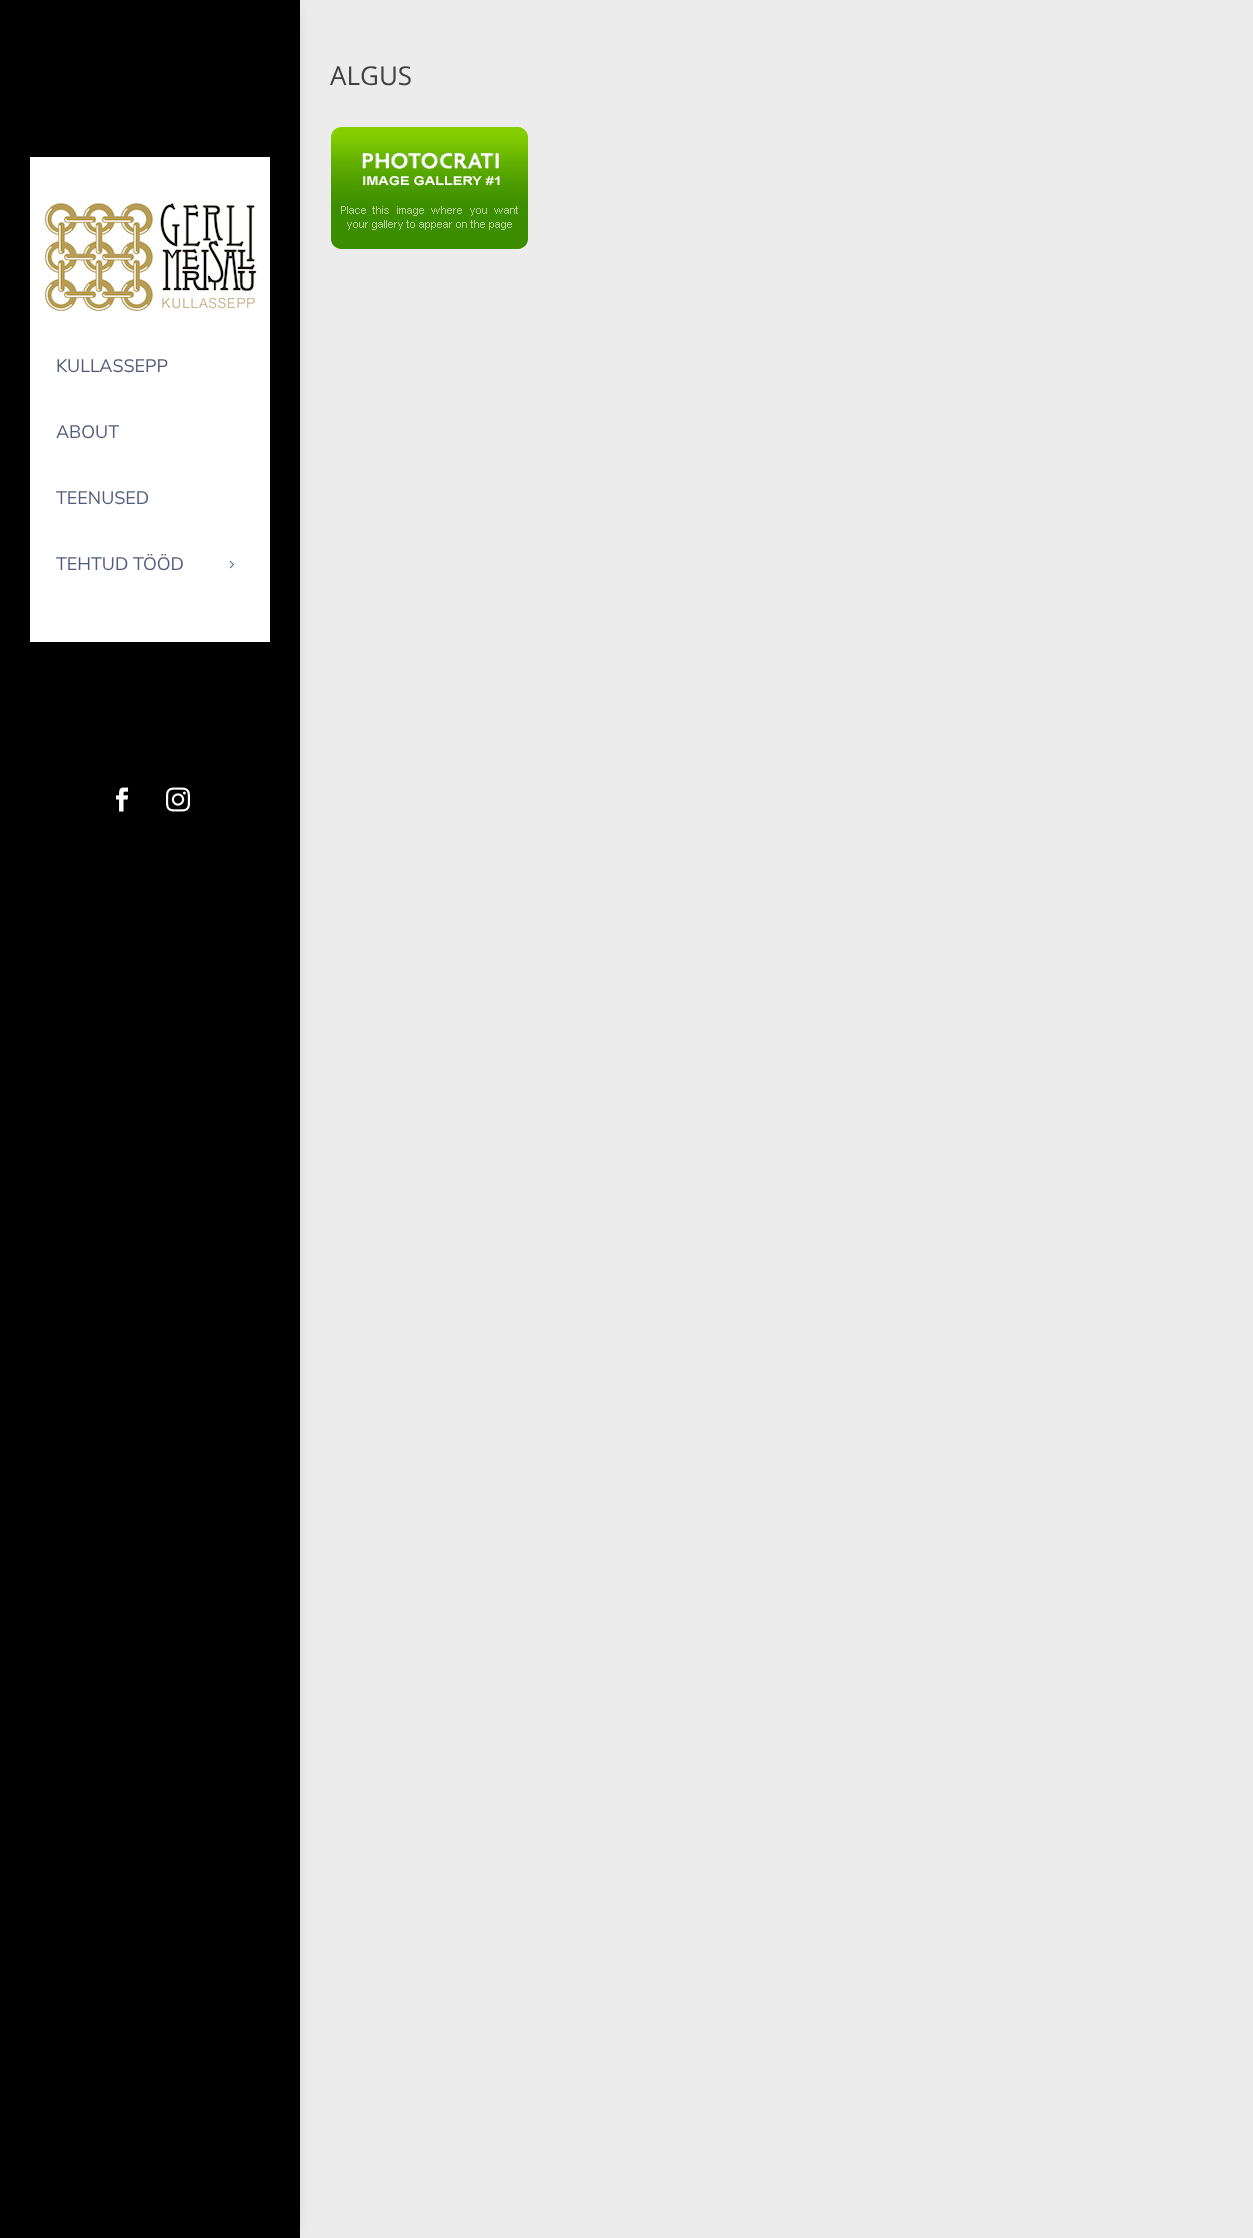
(async () => {
const canvas = document.querySelector("canvas")
canvas.width = 1253
canvas.height = 2238
const c = canvas.getContext("2d")
c.miterLimit = 4
c.fontKerning = "normal"
function T(s,x,y){c.fillText(s,x,y)}
function R(x,y,w,h){c.fillRect(x,y,w,h)}
async function I(src,x,y,w,h){const img=new Image();img.src=src;await img.decode();c.drawImage(img,x,y,w,h)}
c.fillStyle="#ececec"
R(0,0,1253,2238)
c.font="26px Open Sans"
c.fillStyle="#404040"
T("ALGUS",330,85)
await I("1.png",331,127,197,122)
c.fillStyle="#0000004d"
c.filter="blur(10px)"
c.beginPath()
c.rect(10,10,280,2218)
c.fill()
c.filter="none"
c.fillStyle="#000"
R(0,0,300,2238)
c.fillStyle="#fff"
R(30,157,240,485)
await I("2.png",44,203,213,109)
c.font="18px Nunito Sans"
c.fillStyle="#535b7c"
T("KULLASSEPP",56,372)
T("ABOUT",56,438)
T("TEENUSED",56,504)
T("TEHTUD TÖÖD",56,570)
await I("3.png",229,560,5,9)
await I("4.png",116,787,13,25)
await I("5.png",166,787,24,25)
})()
